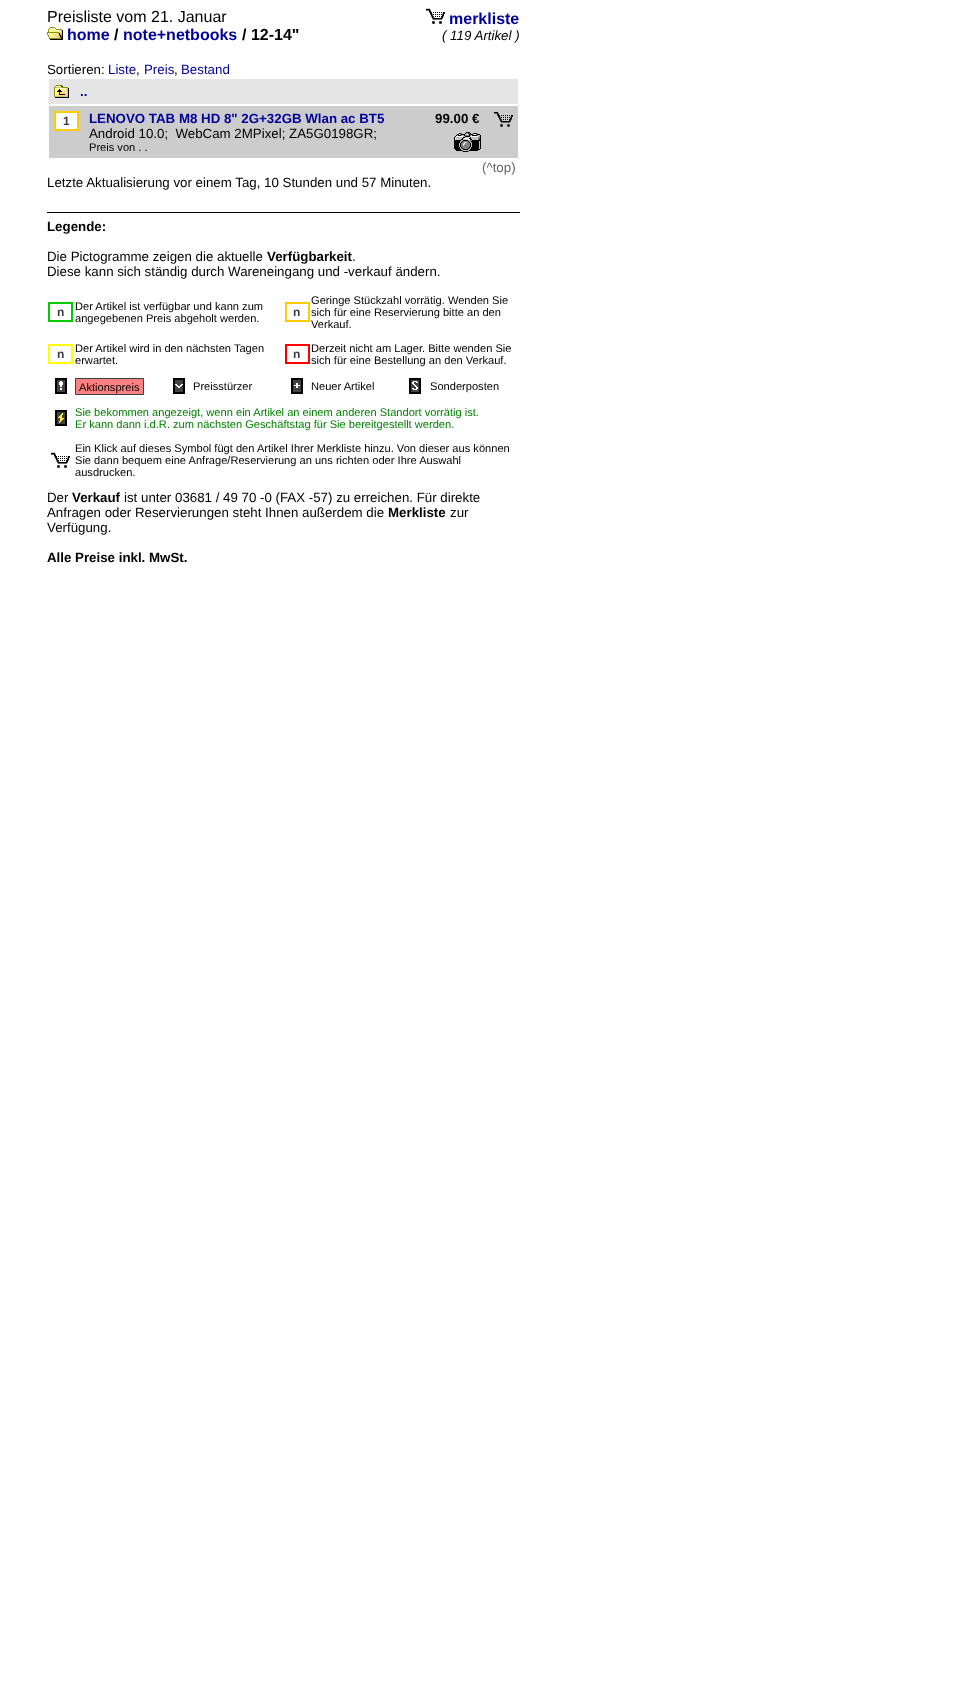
(async () => {
const canvas = document.querySelector("canvas")
canvas.width = 953
canvas.height = 1706
const c = canvas.getContext("2d")
c.miterLimit = 4
c.fontKerning = "normal"
function T(s,x,y){c.fillText(s,x,y)}
function R(x,y,w,h){c.fillRect(x,y,w,h)}
async function I(src,x,y,w,h){const img=new Image();img.src=src;await img.decode();c.drawImage(img,x,y,w,h)}
c.fillStyle="#fff"
R(0,0,953,1706)
c.font="16px Liberation Sans"
c.fillStyle="#000"
T("Preisliste vom 21. Januar",47,22)
await I("1.png",47,27,16,13)
c.font="bold 16px Liberation Sans"
c.fillStyle="#009"
T("home",67,40)
c.fillStyle="#000"
T("/",114,40)
c.fillStyle="#009"
T("note+netbooks",123,40)
c.fillStyle="#000"
T("/ 12-14\"",242,40)
await I("2.png",426,8,19,16)
c.fillStyle="#009"
T("merkliste",449,24)
c.font="italic 13.3px Liberation Sans"
c.fillStyle="#000"
T("( 119 Artikel )",442,40)
c.font="13.3px Liberation Sans"
T("Sortieren:",47,74)
c.fillStyle="#009"
T("Liste",108,74)
c.fillStyle="#000"
T(",",136,74)
c.fillStyle="#009"
T("Preis",144,74)
c.fillStyle="#000"
T(",",174,74)
c.fillStyle="#009"
T("Bestand",181,74)
c.fillStyle="#e5e5e5"
R(49,79,469,25)
await I("3.png",54,85,15,13)
c.font="bold 13.3px Liberation Sans"
c.fillStyle="#009"
T("..",80,96)
c.fillStyle="#ccc"
R(49,106,469,52)
c.fillStyle="#fff"
c.beginPath()
c.rect(55,112,23,18)
c.fill()
c.strokeStyle="#fc0"
c.lineWidth=2
c.stroke()
c.font="bold 12px Liberation Sans"
c.fillStyle="#3a3e4a"
T("1",63,125)
c.font="bold 13.3px Liberation Sans"
c.fillStyle="#009"
T("LENOVO TAB M8 HD 8\" 2G+32GB Wlan ac BT5",89,123)
c.font="13.3px Liberation Sans"
c.fillStyle="#000"
T("Android 10.0;  WebCam 2MPixel; ZA5G0198GR;",89,138)
c.font="11.1px Liberation Sans"
T("Preis von . .",89,151)
c.font="bold 13.3px Liberation Sans"
T("99.00 €",435,123)
await I("4.png",454,132,27,20)
await I("5.png",494,112,19,15)
c.font="13.3px Liberation Sans"
c.fillStyle="#666"
T("(^top)",482,172)
c.fillStyle="#000"
T("Letzte Aktualisierung vor einem Tag, 10 Stunden und 57 Minuten.",47,187)
R(47,212,473,1)
c.font="bold 13.3px Liberation Sans"
T("Legende:",47,231)
c.font="13.3px Liberation Sans"
T("Die Pictogramme zeigen die aktuelle",47,261)
c.font="bold 13.3px Liberation Sans"
T("Verfügbarkeit",267,261)
c.font="13.3px Liberation Sans"
T(".",352,261)
T("Diese kann sich ständig durch Wareneingang und -verkauf ändern.",47,276)
c.strokeStyle="#0c0"
c.strokeRect(49,303,23,18)
c.font="bold 12px Liberation Sans"
c.fillStyle="#3a3e4a"
T("n",57,316)
c.font="11.1px Liberation Sans"
c.fillStyle="#000"
T("Der Artikel ist verfügbar und kann zum",75,310)
T("angegebenen Preis abgeholt werden.",75,322)
c.strokeStyle="#fc0"
c.strokeRect(286,303,23,18)
c.font="bold 12px Liberation Sans"
c.fillStyle="#3a3e4a"
T("n",293,316)
c.font="11.1px Liberation Sans"
c.fillStyle="#000"
T("Geringe Stückzahl vorrätig. Wenden Sie",311,304)
T("sich für eine Reservierung bitte an den",311,316)
T("Verkauf.",311,328)
c.strokeStyle="#ff0"
c.strokeRect(49,345,23,18)
c.font="bold 12px Liberation Sans"
c.fillStyle="#3a3e4a"
T("n",57,358)
c.font="11.1px Liberation Sans"
c.fillStyle="#000"
T("Der Artikel wird in den nächsten Tagen",75,352)
T("erwartet.",75,364)
c.strokeStyle="#f00"
c.strokeRect(286,345,23,18)
c.font="bold 12px Liberation Sans"
c.fillStyle="#3a3e4a"
T("n",293,358)
c.font="11.1px Liberation Sans"
c.fillStyle="#000"
T("Derzeit nicht am Lager. Bitte wenden Sie",311,352)
T("sich für eine Bestellung an den Verkauf.",311,364)
await I("6.png",55,378,12,16)
c.fillStyle="#ff8080"
c.beginPath()
c.rect(75.5,378.5,68,16)
c.fill()
c.strokeStyle="#39424a"
c.lineWidth=1
c.stroke()
c.fillStyle="#000"
T("Aktionspreis",79,391)
await I("7.png",173,378,12,16)
T("Preisstürzer",193,390)
await I("8.png",291,378,12,16)
T("Neuer Artikel",311,390)
await I("9.png",409,378,12,16)
T("Sonderposten",430,390)
await I("10.png",55,410,12,16)
c.fillStyle="#008000"
T("Sie bekommen angezeigt, wenn ein Artikel an einem anderen Standort vorrätig ist.",75,416)
T("Er kann dann i.d.R. zum nächsten Geschäftstag für Sie bereitgestellt werden.",75,428)
await I("2.png",51,452,19,16)
c.fillStyle="#000"
T("Ein Klick auf dieses Symbol fügt den Artikel Ihrer Merkliste hinzu. Von dieser aus können",75,452)
T("Sie dann bequem eine Anfrage/Reservierung an uns richten oder Ihre Auswahl",75,464)
T("ausdrucken.",75,476)
c.font="13.3px Liberation Sans"
T("Der",47,502)
c.font="bold 13.3px Liberation Sans"
T("Verkauf",72,502)
c.font="13.3px Liberation Sans"
T("ist unter 03681 / 49 70 -0 (FAX -57) zu erreichen. Für direkte",124,502)
T("Anfragen oder Reservierungen steht Ihnen außerdem die",47,517)
c.font="bold 13.3px Liberation Sans"
T("Merkliste",388,517)
c.font="13.3px Liberation Sans"
T("zur",450,517)
T("Verfügung.",47,532)
c.font="bold 13.3px Liberation Sans"
T("Alle Preise inkl. MwSt.",47,562)
})()
